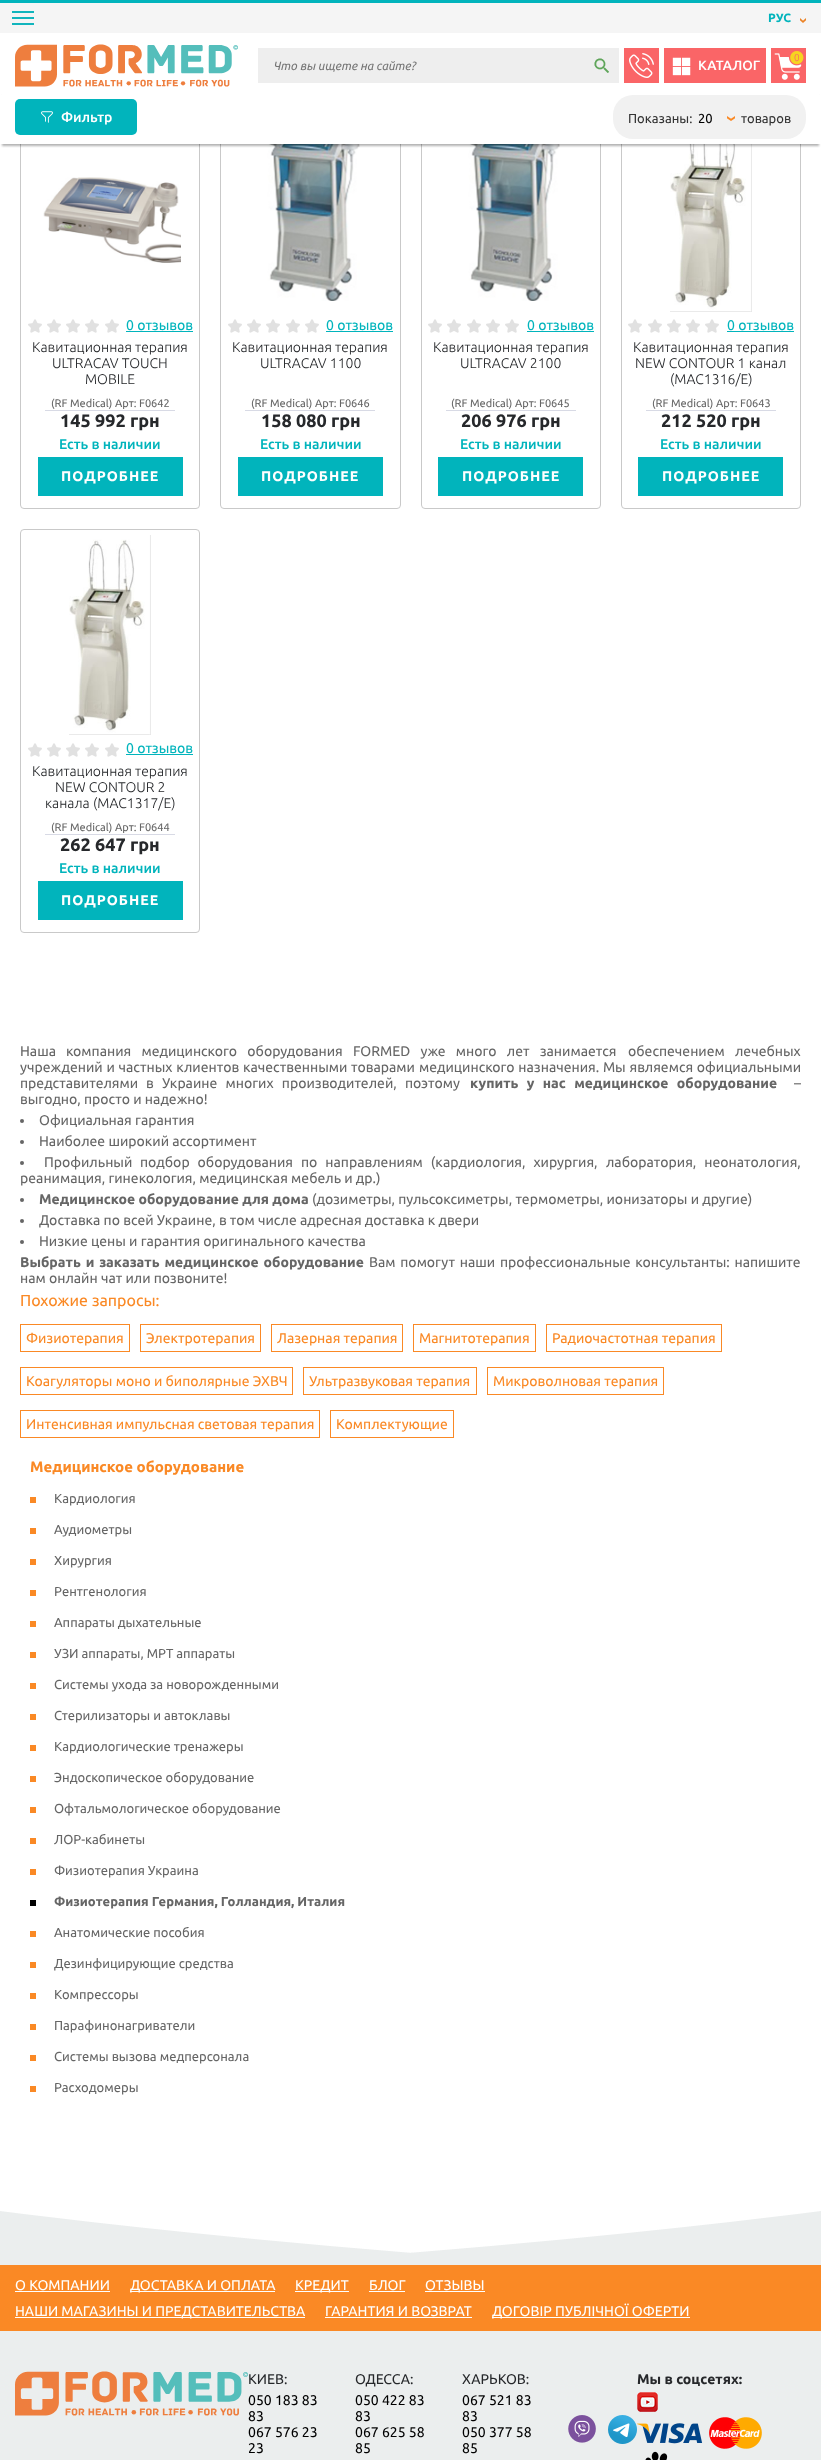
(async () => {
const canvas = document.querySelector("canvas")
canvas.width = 821
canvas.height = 2460
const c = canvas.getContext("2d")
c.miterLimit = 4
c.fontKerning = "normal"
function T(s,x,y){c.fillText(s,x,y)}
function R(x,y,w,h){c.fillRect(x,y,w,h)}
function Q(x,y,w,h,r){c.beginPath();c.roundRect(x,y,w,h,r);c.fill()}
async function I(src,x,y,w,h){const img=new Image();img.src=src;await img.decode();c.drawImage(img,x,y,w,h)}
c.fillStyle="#fff"
R(0,0,821,2460)
c.fillStyle="#f5f5f5"
R(0,3,821,30)
c.fillStyle="#01b4bc"
R(0,0,821,3)
c.fillStyle="#12b5bd"
R(12,11,22,2)
R(12,17,22,2)
R(12,23,22,2)
c.font="bold 12px Ubuntu"
c.fillStyle="#01b4bc"
T("РУС",768,22)
await I("1.png",800,18,6,5)
c.beginPath()
c.roundRect(20.5,106.5,179,402,3.5)
c.strokeStyle="#c9c9c9"
c.stroke()
c.beginPath()
c.roundRect(220.5,106.5,180,402,3.5)
c.stroke()
await I("11.png",267,144,93,157)
c.beginPath()
c.roundRect(421.5,106.5,179,402,3.5)
c.stroke()
await I("12.png",468,144,92,157)
c.beginPath()
c.roundRect(621.5,106.5,179,402,3.5)
c.stroke()
await I("13.png",670,144,82,168)
c.fillStyle="#0000004d"
c.filter="blur(1px)"
c.beginPath()
c.rect(2,96,817,50)
c.fill()
c.filter="none"
c.fillStyle="#fff"
R(2,94,817,1)
await I("2.png",15,44,223,43)
c.fillStyle="#fa6567"
R(624,48,35,35)
await I("3.png",629,53,25,25)
R(771,48,35,35)
await I("4.png",774,51,30,29)
c.font="300 10px Ubuntu"
T("0",794,61)
c.fillStyle="#eee"
R(258,48,361,35)
c.font="italic 12px Ubuntu"
c.fillStyle="#757575"
T("Что вы ищете на сайте?",273,70)
await I("5.png",594,58,15,15)
c.fillStyle="#fa6567"
R(664,48,102,35)
await I("6.png",672,57,19,19)
c.font="500 13.5px Ubuntu"
c.fillStyle="#fff"
T("КАТАЛОГ",698,70)
R(0,95,821,49)
c.fillStyle="#01b4bc"
Q(15,99,122,36,5)
await I("7.png",41,111,12,12)
c.font="500 14px Ubuntu"
c.fillStyle="#fff"
T("Фильтр",61,122)
c.fillStyle="#f1f1f1"
Q(613,95,193,44,20)
c.font="13px Ubuntu"
c.fillStyle="#333"
T("Показаны:",628,123)
await I("8.png",727,116,8,5)
c.fillStyle="#000"
T("20",698,123)
c.fillStyle="#333"
T("товаров",741,123)
await I("9.png",43,177,138,86)
await I("10.png",28,319,14,14)
await I("10.png",47,319,14,14)
await I("10.png",66,319,14,14)
await I("10.png",85,319,14,14)
await I("10.png",105,319,14,14)
c.font="14px Ubuntu"
c.fillStyle="#01b4bc"
T("0 отзывов",126,330)
R(126,331,67,1)
c.font="300 14px Ubuntu"
c.fillStyle="#26282b"
T("Кавитационная терапия",32,352)
T("ULTRACAV TOUCH",52,368)
T("MOBILE",85,384)
c.font="11px Ubuntu"
c.fillStyle="#666"
T("(RF Medical) Арт: F0642",51,407)
c.fillStyle="#d8dae5"
R(45,410,130,1)
c.font="bold 18px Ubuntu"
c.fillStyle="#26282b"
T("145 992 грн",60,427)
c.font="500 14px Ubuntu"
c.fillStyle="#01b4bc"
T("Есть в наличии",59,449)
R(38,457,145,39)
c.letterSpacing="1px"
c.font="bold 14px Ubuntu"
c.fillStyle="#fff"
T("ПОДРОБНЕЕ",61,481)
await I("10.png",228,319,14,14)
await I("10.png",247,319,14,14)
await I("10.png",266,319,14,14)
await I("10.png",286,319,14,14)
await I("10.png",305,319,14,14)
c.letterSpacing="0px"
c.font="14px Ubuntu"
c.fillStyle="#01b4bc"
T("0 отзывов",326,330)
R(326,331,67,1)
c.font="300 14px Ubuntu"
c.fillStyle="#26282b"
T("Кавитационная терапия",232,352)
T("ULTRACAV 1100",260,368)
c.font="11px Ubuntu"
c.fillStyle="#666"
T("(RF Medical) Арт: F0646",251,407)
c.fillStyle="#d8dae5"
R(245,410,130,1)
c.font="bold 18px Ubuntu"
c.fillStyle="#26282b"
T("158 080 грн",261,427)
c.font="500 14px Ubuntu"
c.fillStyle="#01b4bc"
T("Есть в наличии",260,449)
R(238,457,145,39)
c.letterSpacing="1px"
c.font="bold 14px Ubuntu"
c.fillStyle="#fff"
T("ПОДРОБНЕЕ",261,481)
await I("10.png",428,319,14,14)
await I("10.png",447,319,14,14)
await I("10.png",467,319,14,14)
await I("10.png",486,319,14,14)
await I("10.png",505,319,14,14)
c.letterSpacing="0px"
c.font="14px Ubuntu"
c.fillStyle="#01b4bc"
T("0 отзывов",527,330)
R(527,331,67,1)
c.font="300 14px Ubuntu"
c.fillStyle="#26282b"
T("Кавитационная терапия",433,352)
T("ULTRACAV 2100",460,368)
c.font="11px Ubuntu"
c.fillStyle="#666"
T("(RF Medical) Арт: F0645",451,407)
c.fillStyle="#d8dae5"
R(446,410,130,1)
c.font="bold 18px Ubuntu"
c.fillStyle="#26282b"
T("206 976 грн",461,427)
c.font="500 14px Ubuntu"
c.fillStyle="#01b4bc"
T("Есть в наличии",460,449)
R(438,457,145,39)
c.letterSpacing="1px"
c.font="bold 14px Ubuntu"
c.fillStyle="#fff"
T("ПОДРОБНЕЕ",462,481)
await I("10.png",628,319,14,14)
await I("10.png",648,319,14,14)
await I("10.png",667,319,14,14)
await I("10.png",686,319,14,14)
await I("10.png",705,319,14,14)
c.letterSpacing="0px"
c.font="14px Ubuntu"
c.fillStyle="#01b4bc"
T("0 отзывов",727,330)
R(727,331,67,1)
c.font="300 14px Ubuntu"
c.fillStyle="#26282b"
T("Кавитационная терапия",633,352)
T("NEW CONTOUR 1 канал",635,368)
T("(MAC1316/E)",670,384)
c.font="11px Ubuntu"
c.fillStyle="#666"
T("(RF Medical) Арт: F0643",652,407)
c.fillStyle="#d8dae5"
R(646,410,130,1)
c.font="bold 18px Ubuntu"
c.fillStyle="#26282b"
T("212 520 грн",661,427)
c.font="500 14px Ubuntu"
c.fillStyle="#01b4bc"
T("Есть в наличии",660,449)
R(638,457,145,39)
c.letterSpacing="1px"
c.font="bold 14px Ubuntu"
c.fillStyle="#fff"
T("ПОДРОБНЕЕ",662,481)
c.beginPath()
c.roundRect(20.5,529.5,179,403,3.5)
c.stroke()
await I("14.png",69,535,82,200)
await I("10.png",28,743,14,14)
await I("10.png",47,743,14,14)
await I("10.png",66,743,14,14)
await I("10.png",85,743,14,14)
await I("10.png",105,743,14,14)
c.letterSpacing="0px"
c.font="14px Ubuntu"
c.fillStyle="#01b4bc"
T("0 отзывов",126,753)
R(126,754,67,1)
c.font="300 14px Ubuntu"
c.fillStyle="#26282b"
T("Кавитационная терапия",32,776)
T("NEW CONTOUR 2",55,792)
T("канала (MAC1317/E)",45,808)
c.font="11px Ubuntu"
c.fillStyle="#666"
T("(RF Medical) Арт: F0644",51,831)
c.fillStyle="#d8dae5"
R(45,834,130,1)
c.font="bold 18px Ubuntu"
c.fillStyle="#26282b"
T("262 647 грн",60,851)
c.font="500 14px Ubuntu"
c.fillStyle="#01b4bc"
T("Есть в наличии",59,873)
R(38,881,145,39)
c.letterSpacing="1px"
c.font="bold 14px Ubuntu"
c.fillStyle="#fff"
T("ПОДРОБНЕЕ",61,905)
c.letterSpacing="0px"
c.font="14px Ubuntu"
c.fillStyle="#666"
T("Наша",20,1056)
c.wordSpacing="7px"
T("компания медицинского оборудования FORMED уже много лет занимается",66,1056)
T("обеспечением лечебных",628,1056)
c.wordSpacing="0.5px"
T("учреждений и частных клиентов качественными товарами",20,1072)
T("медицинского назначения. Мы являемся официальными",419,1072)
c.wordSpacing="0px"
T("представителями",20,1088)
c.wordSpacing="5px"
T("в Украине многих производителей, поэтому",146,1088)
c.font="bold 14px Ubuntu"
T("купить у нас медицинское оборудование",470,1088)
c.wordSpacing="0px"
c.font="14px Ubuntu"
T("–",794,1088)
T("выгодно, просто и надежно!",20,1104)
c.beginPath()
c.arc(22,1121,2,0,7)
c.fill()
T("Официальная гарантия",39,1125)
c.beginPath()
c.arc(22,1142,2,0,7)
c.fill()
T("Наиболее широкий ассортимент",39,1146)
c.beginPath()
c.arc(22,1163,2,0,7)
c.fill()
T("Профильный",44,1167)
c.wordSpacing="4.75px"
T("подбор оборудования по направлениям (кардиология, хирургия,",140,1167)
T("лаборатория, неонатология,",606,1167)
c.wordSpacing="0px"
T("реанимация, гинекология, медицинская мебель и др.)",20,1183)
c.beginPath()
c.arc(22,1200,2,0,7)
c.fill()
c.font="bold 14px Ubuntu"
T("Медицинское оборудование для дома",39,1204)
c.font="14px Ubuntu"
T("(дозиметры, пульсоксиметры, термометры, ионизаторы и другие)",312,1204)
c.beginPath()
c.arc(22,1221,2,0,7)
c.fill()
T("Доставка по всей Украине, в том числе адресная доставка к двери",39,1225)
c.beginPath()
c.arc(22,1242,2,0,7)
c.fill()
T("Низкие цены и гарантия оригинального качества",39,1246)
c.wordSpacing="1.5px"
c.font="bold 14px Ubuntu"
T("Выбрать и заказать медицинское оборудование",20,1267)
c.font="14px Ubuntu"
T("Вам помогут наши профессиональные консультанты: напишите",369,1267)
c.wordSpacing="0px"
T("нам онлайн чат или позвоните!",20,1283)
c.font="16px Ubuntu"
c.fillStyle="#fa8925"
T("Похожие запросы:",20,1306)
c.strokeStyle="#fa8925"
c.strokeRect(20.5,1324.5,109,27)
c.font="14px Ubuntu"
T("Физиотерапия",26,1343)
c.strokeRect(140.5,1324.5,120,27)
T("Электротерапия",146,1343)
c.strokeRect(271.5,1324.5,131,27)
T("Лазерная терапия",277,1343)
c.strokeRect(413.5,1324.5,122,27)
T("Магнитотерапия",419,1343)
c.strokeRect(546.5,1324.5,175,27)
T("Радиочастотная терапия",552,1343)
c.strokeRect(20.5,1367.5,272,27)
T("Коагуляторы моно и биполярные ЭХВЧ",26,1386)
c.strokeRect(303.5,1367.5,173,27)
T("Ультразвуковая терапия",309,1386)
c.strokeRect(487.5,1367.5,176,27)
T("Микроволновая терапия",493,1386)
c.strokeRect(20.5,1410.5,299,27)
T("Интенсивная импульсная световая терапия",26,1429)
c.strokeRect(330.5,1410.5,123,27)
T("Комплектующие",336,1429)
c.font="bold 15px Ubuntu"
T("Медицинское оборудование",30,1472)
R(30,1497,6,6)
c.font="13px Ubuntu"
c.fillStyle="#666"
T("Кардиология",54,1503)
c.fillStyle="#fa8925"
R(30,1528,6,6)
c.fillStyle="#666"
T("Аудиометры",54,1534)
c.fillStyle="#fa8925"
R(30,1559,6,6)
c.fillStyle="#666"
T("Хирургия",54,1565)
c.fillStyle="#fa8925"
R(30,1590,6,6)
c.fillStyle="#666"
T("Рентгенология",54,1596)
c.fillStyle="#fa8925"
R(30,1621,6,6)
c.fillStyle="#666"
T("Аппараты дыхательные",54,1627)
c.fillStyle="#fa8925"
R(30,1652,6,6)
c.fillStyle="#666"
T("УЗИ аппараты, МРТ аппараты",54,1658)
c.fillStyle="#fa8925"
R(30,1683,6,6)
c.fillStyle="#666"
T("Системы ухода за новорожденными",54,1689)
c.fillStyle="#fa8925"
R(30,1714,6,6)
c.fillStyle="#666"
T("Стерилизаторы и автоклавы",54,1720)
c.fillStyle="#fa8925"
R(30,1745,6,6)
c.fillStyle="#666"
T("Кардиологические тренажеры",54,1751)
c.fillStyle="#fa8925"
R(30,1776,6,6)
c.fillStyle="#666"
T("Эндоскопическое оборудование",54,1782)
c.fillStyle="#fa8925"
R(30,1807,6,6)
c.fillStyle="#666"
T("Офтальмологическое оборудование",54,1813)
c.fillStyle="#fa8925"
R(30,1838,6,6)
c.fillStyle="#666"
T("ЛОР-кабинеты",54,1844)
c.fillStyle="#fa8925"
R(30,1869,6,6)
c.fillStyle="#666"
T("Физиотерапия Украина",54,1875)
c.fillStyle="#000"
R(30,1900,6,6)
c.font="bold 13px Ubuntu"
c.fillStyle="#666"
T("Физиотерапия Германия, Голландия, Италия",54,1906)
c.fillStyle="#fa8925"
R(30,1931,6,6)
c.font="13px Ubuntu"
c.fillStyle="#666"
T("Анатомические пособия",54,1937)
c.fillStyle="#fa8925"
R(30,1962,6,6)
c.fillStyle="#666"
T("Дезинфицирующие средства",54,1968)
c.fillStyle="#fa8925"
R(30,1993,6,6)
c.fillStyle="#666"
T("Компрессоры",54,1999)
c.fillStyle="#fa8925"
R(30,2024,6,6)
c.fillStyle="#666"
T("Парафинонагриватели",54,2030)
c.fillStyle="#fa8925"
R(30,2055,6,6)
c.fillStyle="#666"
T("Системы вызова медперсонала",54,2061)
c.fillStyle="#fa8925"
R(30,2086,6,6)
c.fillStyle="#666"
T("Расходомеры",54,2092)
await I("15.png",0,2211,413,54)
await I("16.png",411,2211,410,54)
c.fillStyle="#fa8925"
R(0,2265,821,66)
c.font="14px Ubuntu"
c.fillStyle="#fff"
T("О КОМПАНИИ",15,2290)
R(15,2291,95,1)
R(130,2291,145,1)
T("ДОСТАВКА И ОПЛАТА",130,2290)
R(295,2291,54,1)
T("КРЕДИТ",295,2290)
T("БЛОГ",369,2290)
R(369,2291,36,1)
T("ОТЗЫВЫ",425,2290)
R(425,2291,60,1)
R(15,2317,290,1)
T("НАШИ МАГАЗИНЫ И ПРЕДСТАВИТЕЛЬСТВА",15,2316)
T("ГАРАНТИЯ И ВОЗВРАТ",325,2316)
R(325,2317,147,1)
R(492,2317,198,1)
T("ДОГОВІР ПУБЛІЧНОЇ ОФЕРТИ",492,2316)
c.fillStyle="#ebeeee"
R(0,2331,821,129)
await I("17.png",15,2371,233,45)
c.fillStyle="#26282b"
T("КИЕВ:",248,2384)
c.fillStyle="#000"
T("050 183 83",248,2405)
T("83",248,2421)
T("067 576 23",248,2437)
T("23",248,2453)
c.fillStyle="#26282b"
T("ОДЕССА:",355,2384)
c.fillStyle="#000"
T("050 422 83",355,2405)
T("83",355,2421)
T("067 625 58",355,2437)
T("85",355,2453)
c.fillStyle="#26282b"
T("ХАРЬКОВ:",462,2384)
c.fillStyle="#000"
T("067 521 83",462,2405)
T("83",462,2421)
T("050 377 58",462,2437)
T("85",462,2453)
await I("18.png",568,2415,28,28)
await I("19.png",608,2415,29,29)
c.font="bold 14px Ubuntu"
c.fillStyle="#26282b"
T("Мы в соцсетях:",637,2384)
await I("20.png",637,2392,21,20)
await I("21.png",637,2417,125,32)
await I("22.png",645,2451,23,9)
})()
